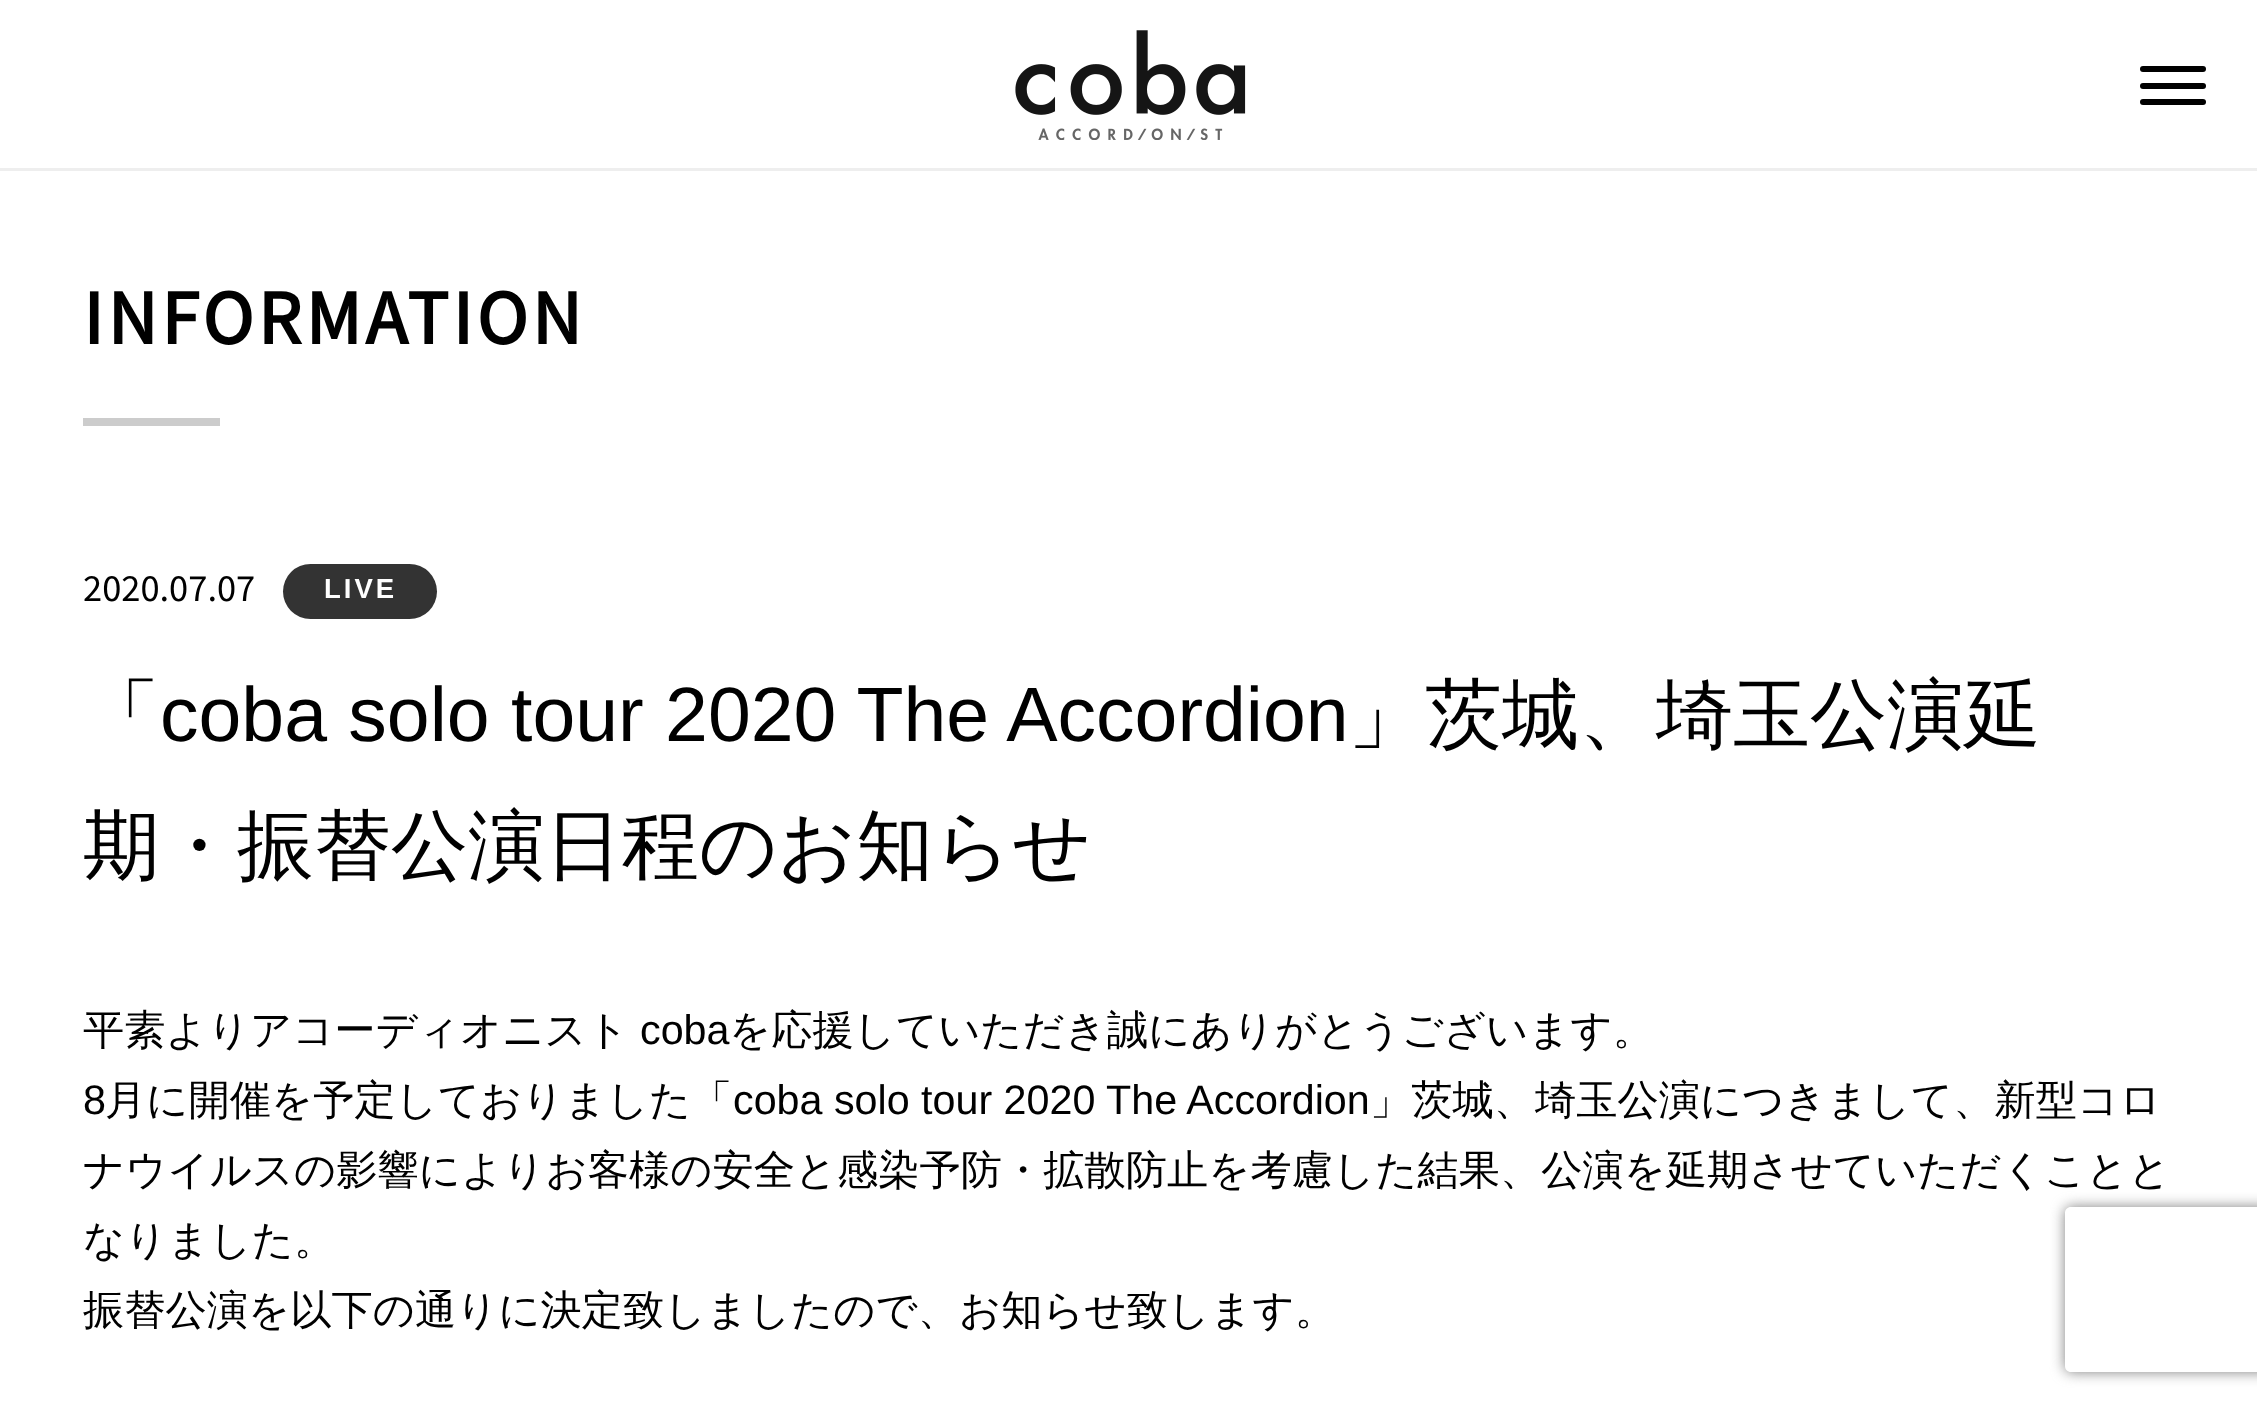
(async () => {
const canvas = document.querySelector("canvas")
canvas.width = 2257
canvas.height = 1410
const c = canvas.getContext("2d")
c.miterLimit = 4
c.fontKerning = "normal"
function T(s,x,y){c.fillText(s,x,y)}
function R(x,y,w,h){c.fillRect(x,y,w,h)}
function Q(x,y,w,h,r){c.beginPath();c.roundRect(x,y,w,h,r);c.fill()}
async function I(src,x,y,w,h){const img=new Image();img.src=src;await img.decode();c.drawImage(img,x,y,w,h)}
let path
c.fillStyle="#fff"
R(0,0,2257,1410)
c.fillStyle="#eee"
R(0,168,2257,3)
await I("1.png",1015,30,231,110)
c.fillStyle="#000"
Q(2140,66,66,6,3)
Q(2140,83,66,6,3)
Q(2140,99,66,6,3)
c.letterSpacing="4px"
c.font="bold 77px Source Sans Pro"
T("INFORMATION",83,344)
c.fillStyle="#ccc"
R(83,418,137,8)
c.letterSpacing="0px"
c.font="38.5px Source Sans Pro"
c.fillStyle="#000"
T("2020.07.07",83,601)
c.fillStyle="#333"
Q(283,564,154,55,27.5)
c.letterSpacing="3px"
c.font="bold 27.5px Liberation Sans"
c.fillStyle="#fff"
T("LIVE",324,598)
c.letterSpacing="0px"
c.font="500 77px WenQuanYi Zen Hei"
c.fillStyle="#000"
T("「",83,741)
c.font="77px Liberation Sans"
T("coba solo tour 2020 The Accordion",160,741)
c.font="500 77px WenQuanYi Zen Hei"
T("」茨城、埼玉公演延",1348,741)
T("期・振替公演日程のお知らせ",83,872)
c.font="500 41.25px WenQuanYi Zen Hei"
T("平素よりアコーディオニスト",83,1044)
c.font="41.25px Liberation Sans"
T("coba",640,1044)
c.font="500 41.25px WenQuanYi Zen Hei"
T("を応援していただき誠にありがとうございます。",729,1044)
c.font="41.25px Liberation Sans"
T("8",83,1114)
c.font="500 41.25px WenQuanYi Zen Hei"
T("月に開催を予定しておりました「",105,1114)
c.font="41.25px Liberation Sans"
T("coba solo tour 2020 The Accordion",733,1114)
c.font="500 41.25px WenQuanYi Zen Hei"
T("」茨城、埼玉公演につきまして、新型コロ",1370,1114)
T("ナウイルスの影響によりお客様の安全と感染予防・拡散防止を考慮した結果、公演を延期させていただくことと",83,1184)
T("なりました。",83,1254)
T("振替公演を以下の通りに決定致しましたので、お知らせ致します。",83,1324)
c.save()
path = new Path2D("M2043 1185h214v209h-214zm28 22h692c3.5 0 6 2.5 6 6v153c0 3.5-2.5 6-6 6h-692c-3.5 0-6-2.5-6-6v-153c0-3.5 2.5-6 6-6z")
c.clip(path,"evenodd")
c.fillStyle="#808080"
c.filter="blur(7px)"
c.beginPath()
c.roundRect(2065,1207,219,165,6)
c.fill()
c.filter="none"
c.restore()
})()
